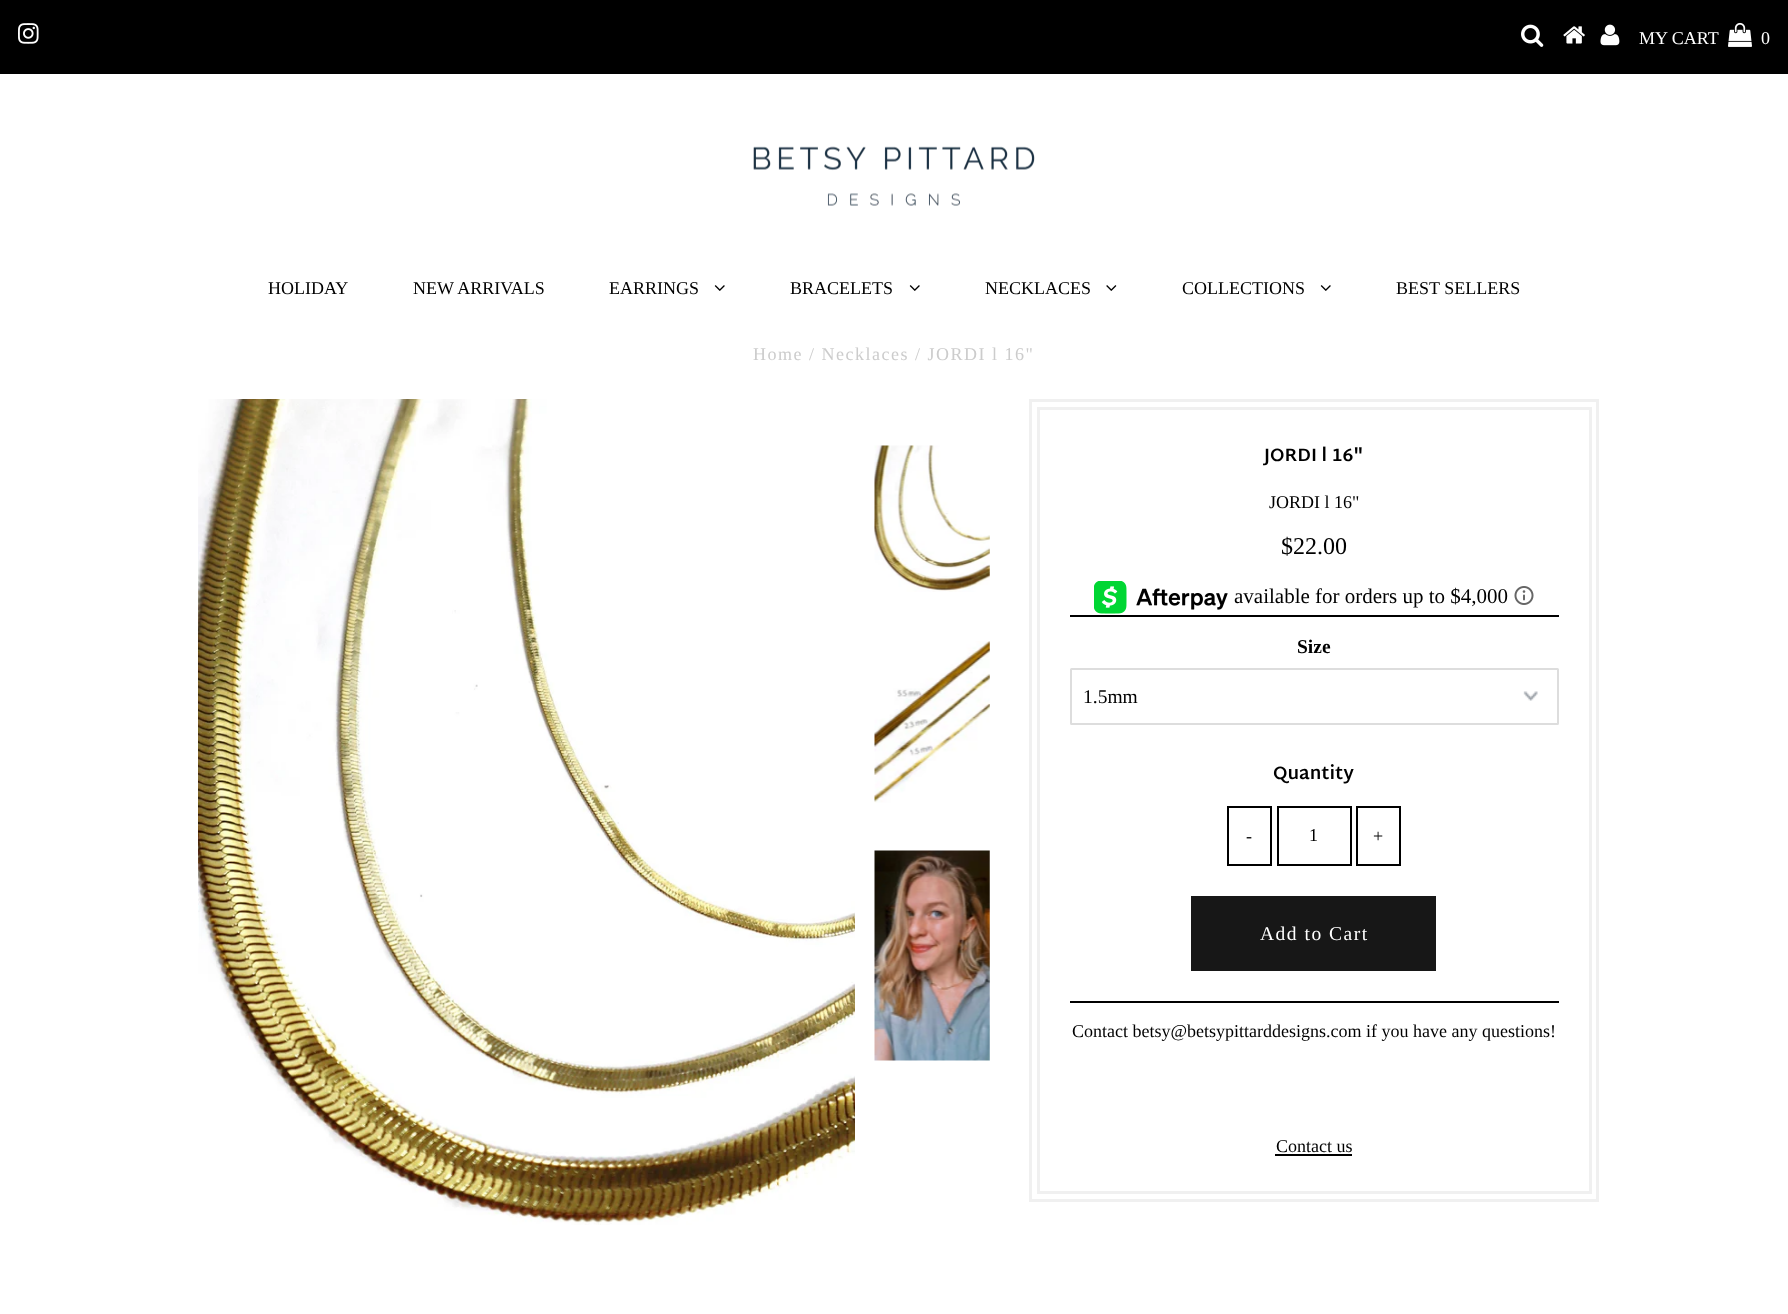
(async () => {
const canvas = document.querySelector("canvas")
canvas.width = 1788
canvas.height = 1314
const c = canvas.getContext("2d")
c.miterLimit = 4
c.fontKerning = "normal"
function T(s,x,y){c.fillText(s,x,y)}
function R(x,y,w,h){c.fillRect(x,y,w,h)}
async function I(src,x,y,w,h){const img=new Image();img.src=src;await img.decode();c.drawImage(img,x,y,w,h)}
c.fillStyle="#fff"
R(0,0,1788,1314)
c.fillStyle="#000"
R(0,0,1788,74)
await I("1.png",18,23,21,21)
await I("2.png",1521,24,23,23)
await I("3.png",1563,26,22,18)
await I("4.png",1600,24,20,22)
c.font="18px Liberation Serif"
c.fillStyle="#fff"
T("MY CART",1639,44)
await I("5.png",1728,22,24,25)
T("0",1761,44)
await I("6.png",753,146,282,60)
c.fillStyle="#000"
T("HOLIDAY",268,294)
T("NEW ARRIVALS",413,294)
T("EARRINGS",609,294)
await I("7.png",714,285,11,6)
T("BRACELETS",790,294)
await I("7.png",909,285,11,6)
T("NECKLACES",985,294)
await I("8.png",1106,285,11,6)
T("COLLECTIONS",1182,294)
await I("7.png",1320,285,11,6)
T("BEST SELLERS",1396,294)
c.letterSpacing="1.5px"
c.fillStyle="#ccc"
T("Home / Necklaces / JORDI l 16\"",753,360)
await I("9.png",198,399,657,826)
await I("10.png",874,445,116,147)
await I("11.png",874,641,116,162)
await I("12.png",874,850,116,211)
c.strokeStyle="#f0f0f0"
c.lineWidth=3
c.strokeRect(1030.5,400.5,567,800)
c.strokeRect(1038.5,408.5,552,784)
c.letterSpacing="0px"
c.font="bold 18px Martel Sans"
c.fillStyle="#000"
T("JORDI l 16\"",1264,461)
c.font="18px Liberation Serif"
T("JORDI l 16\"",1269,508)
c.font="24px Liberation Serif"
T("$22.00",1281,554)
await I("13.png",1094,581,134,33)
c.font="21px Liberation Serif"
T("available for orders up to $4,000",1234,603)
await I("14.png",1514,586,20,19)
R(1070,615,489,2)
R(1070,1001,489,2)
c.font="bold 19.5px Liberation Serif"
T("Size",1297,653)
await I("15.png",1523,691,15,10)
c.beginPath()
c.roundRect(1071,669,487,55,.5)
c.strokeStyle="#ddd"
c.lineWidth=2
c.stroke()
c.font="19.5px Liberation Serif"
T("1.5mm",1083,703)
c.font="bold 18px Martel Sans"
T("Quantity",1273,779)
c.strokeStyle="#000"
c.strokeRect(1228,807,43,58)
c.font="18px Liberation Serif"
T("-",1246,842)
c.strokeRect(1278,807,73,58)
T("1",1309,841)
c.strokeRect(1357,807,43,58)
T("+",1373,842)
c.fillStyle="#171717"
R(1191,896,245,75)
c.letterSpacing="1.5px"
c.font="19.5px Liberation Serif"
c.fillStyle="#fff"
T("Add to Cart",1260,940)
c.letterSpacing="0px"
c.font="18px Liberation Serif"
c.fillStyle="#000"
T("Contact betsy@betsypittarddesigns.com if you have any questions!",1072,1037)
T("Contact us",1276,1152)
R(1275,1154,77,2)
})()
